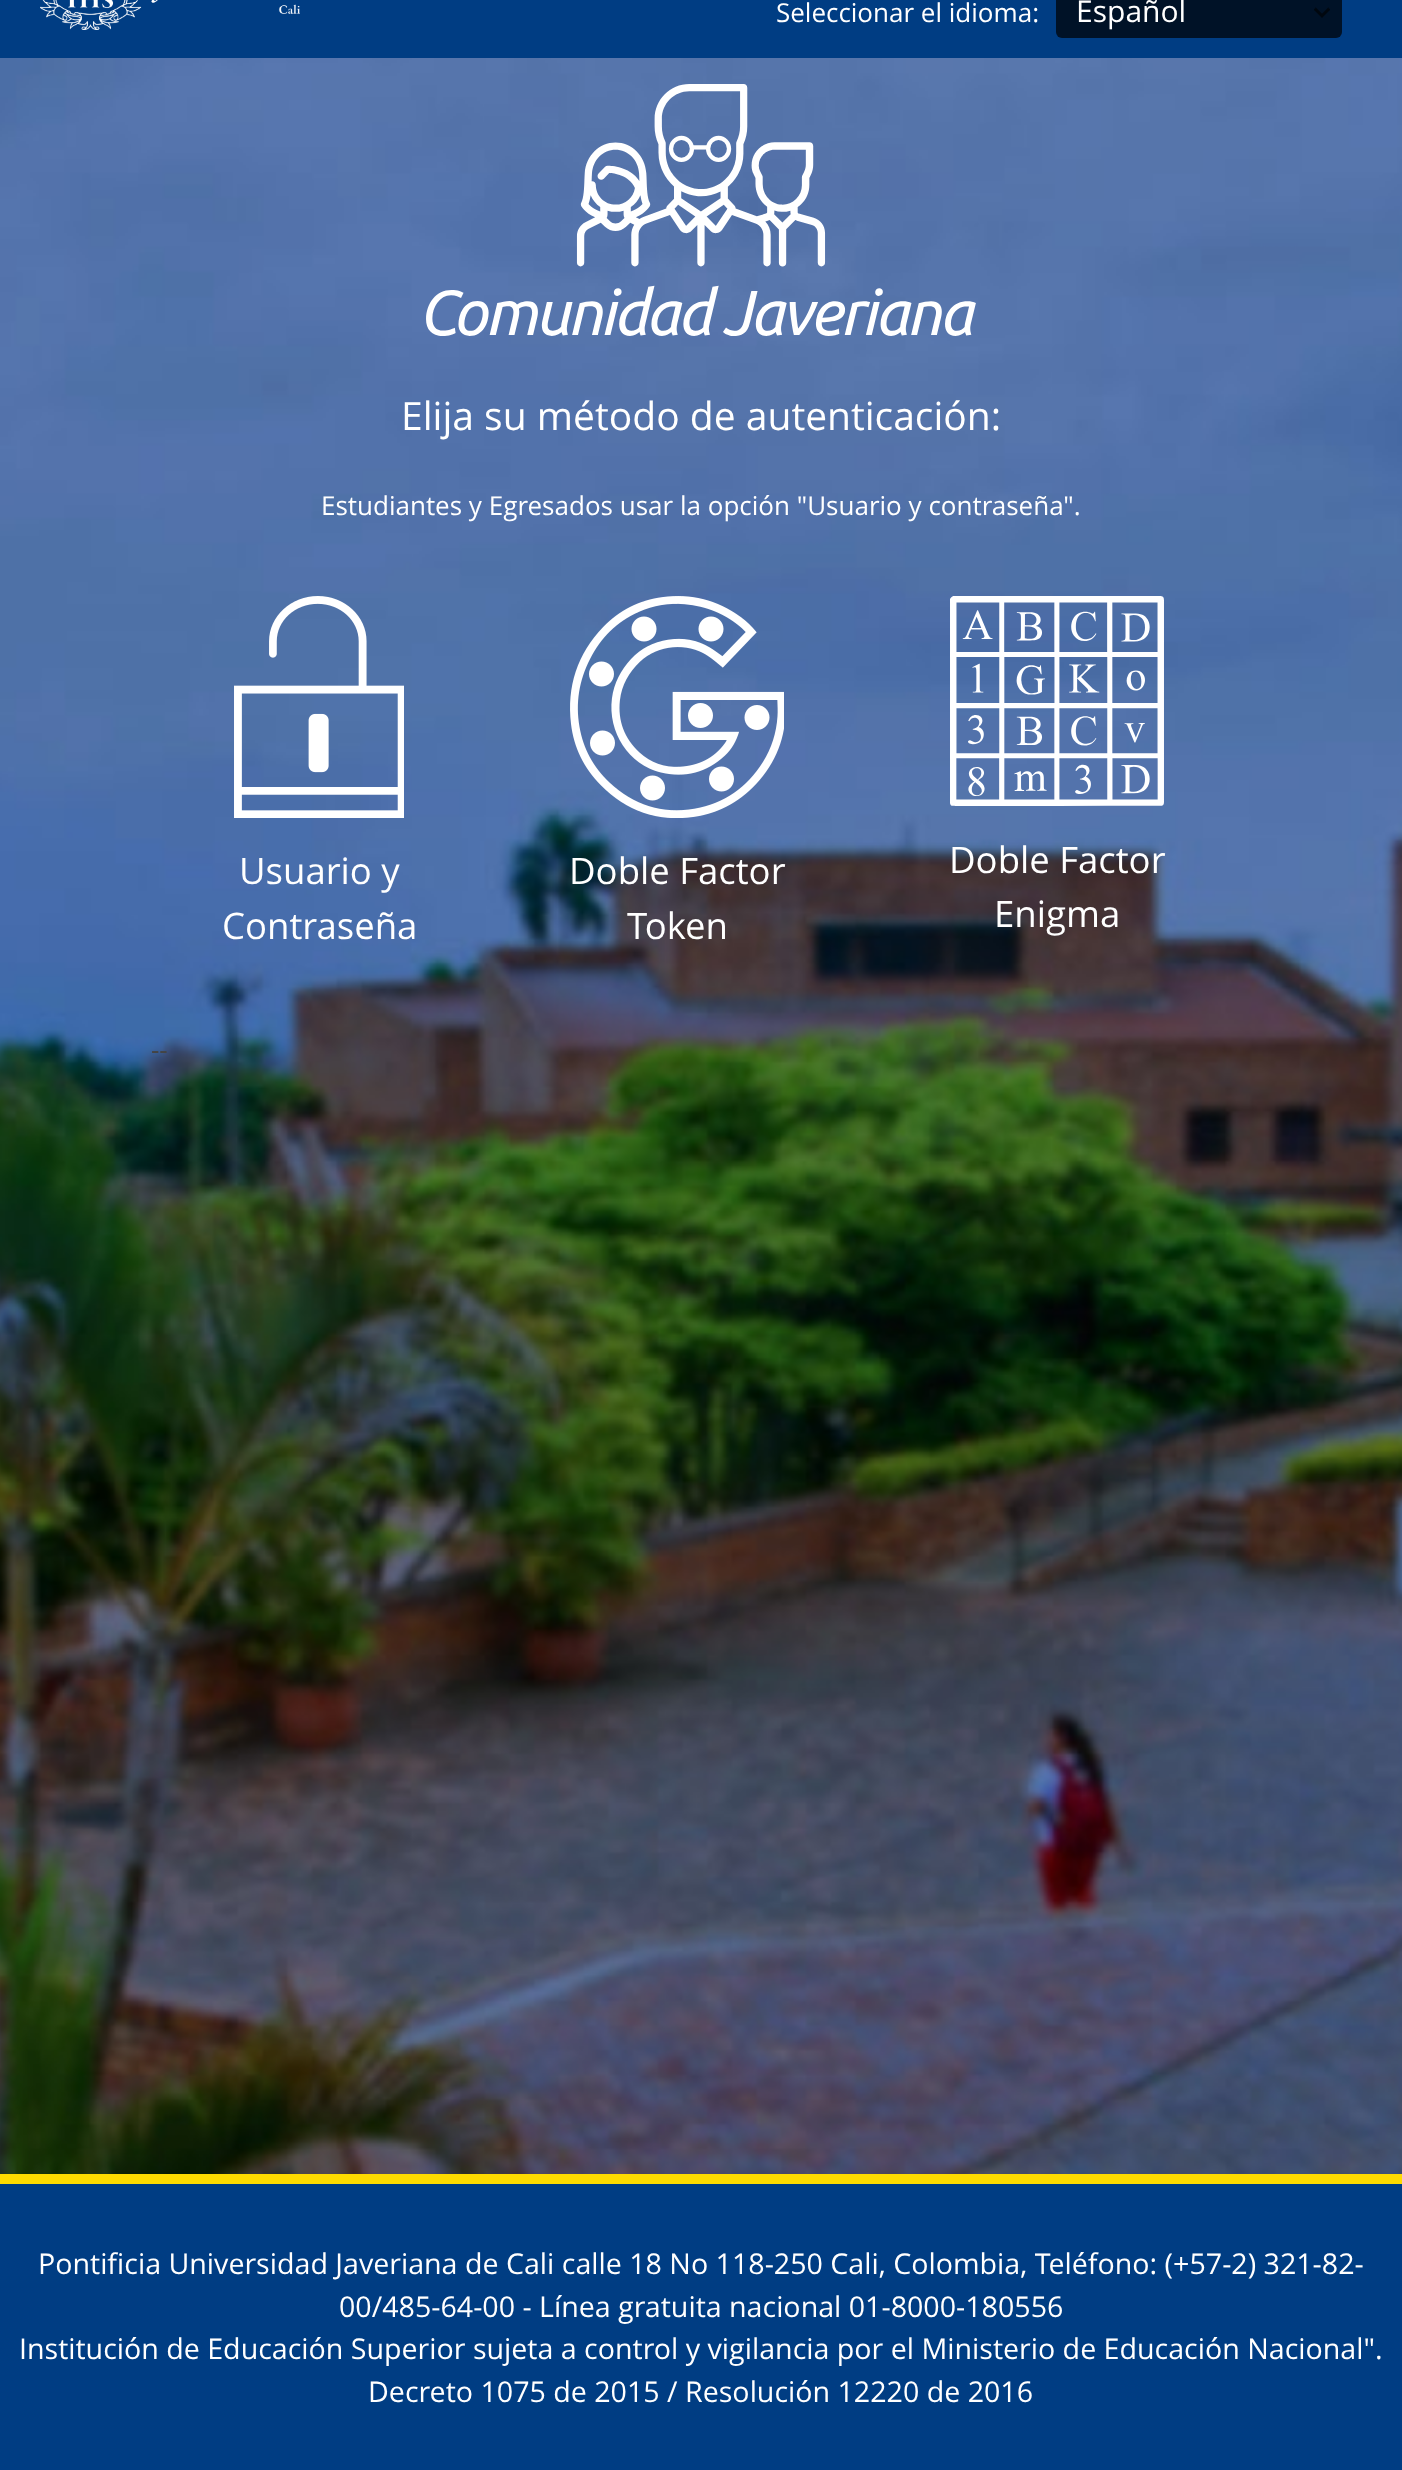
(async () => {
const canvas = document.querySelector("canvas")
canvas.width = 1402
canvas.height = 2470
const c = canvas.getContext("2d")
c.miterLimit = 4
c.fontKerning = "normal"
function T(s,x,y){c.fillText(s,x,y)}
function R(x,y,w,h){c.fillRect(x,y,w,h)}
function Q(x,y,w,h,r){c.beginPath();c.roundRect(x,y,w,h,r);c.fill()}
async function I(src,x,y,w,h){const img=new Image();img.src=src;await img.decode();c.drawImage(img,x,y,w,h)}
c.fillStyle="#fff"
R(0,0,1402,2470)
await I("1.png",0,58,1402,2116)
c.fillStyle="#003d83"
R(0,0,1402,58)
await I("2.png",40,0,260,30)
c.font="26px Open Sans"
c.fillStyle="#fff"
T("Seleccionar el idioma:",776,22)
c.fillStyle="#001227"
Q(1056,-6,286,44,6)
await I("3.png",1314,7,16,11)
c.font="30px Open Sans"
c.fillStyle="#fff"
T("Español",1076,22)
await I("4.png",426,84,550,252)
c.font="39px Open Sans"
T("Elija su método de autenticación:",401,430)
c.font="26px Open Sans"
T("Estudiantes y Egresados usar la opción \"Usuario y contraseña\".",321,515)
await I("5.png",234,596,170,222)
c.font="36.5px Open Sans"
T("Usuario y",239,884)
T("Contraseña",222,939)
await I("6.png",570,596,214,222)
T("Doble Factor",569,884)
T("Token",627,939)
await I("7.png",950,596,214,210)
T("Doble Factor",949,873)
T("Enigma",994,927)
c.font="26px Open Sans"
c.fillStyle="#444"
T("--",151,1059)
c.fillStyle="#fedb00"
R(0,2174,1402,10)
c.fillStyle="#003d83"
R(0,2184,1402,286)
c.font="28.6px Open Sans"
c.fillStyle="#fff"
T("Pontificia Universidad Javeriana de Cali calle 18 No 118-250 Cali, Colombia, Teléfono: (+57-2) 321-82-",38,2274)
T("00/485-64-00 - Línea gratuita nacional 01-8000-180556",339,2317)
T("Institución de Educación Superior sujeta a control y vigilancia por el Ministerio de Educación Nacional\".",19,2359)
T("Decreto 1075 de 2015 / Resolución 12220 de 2016",368,2402)
})()
